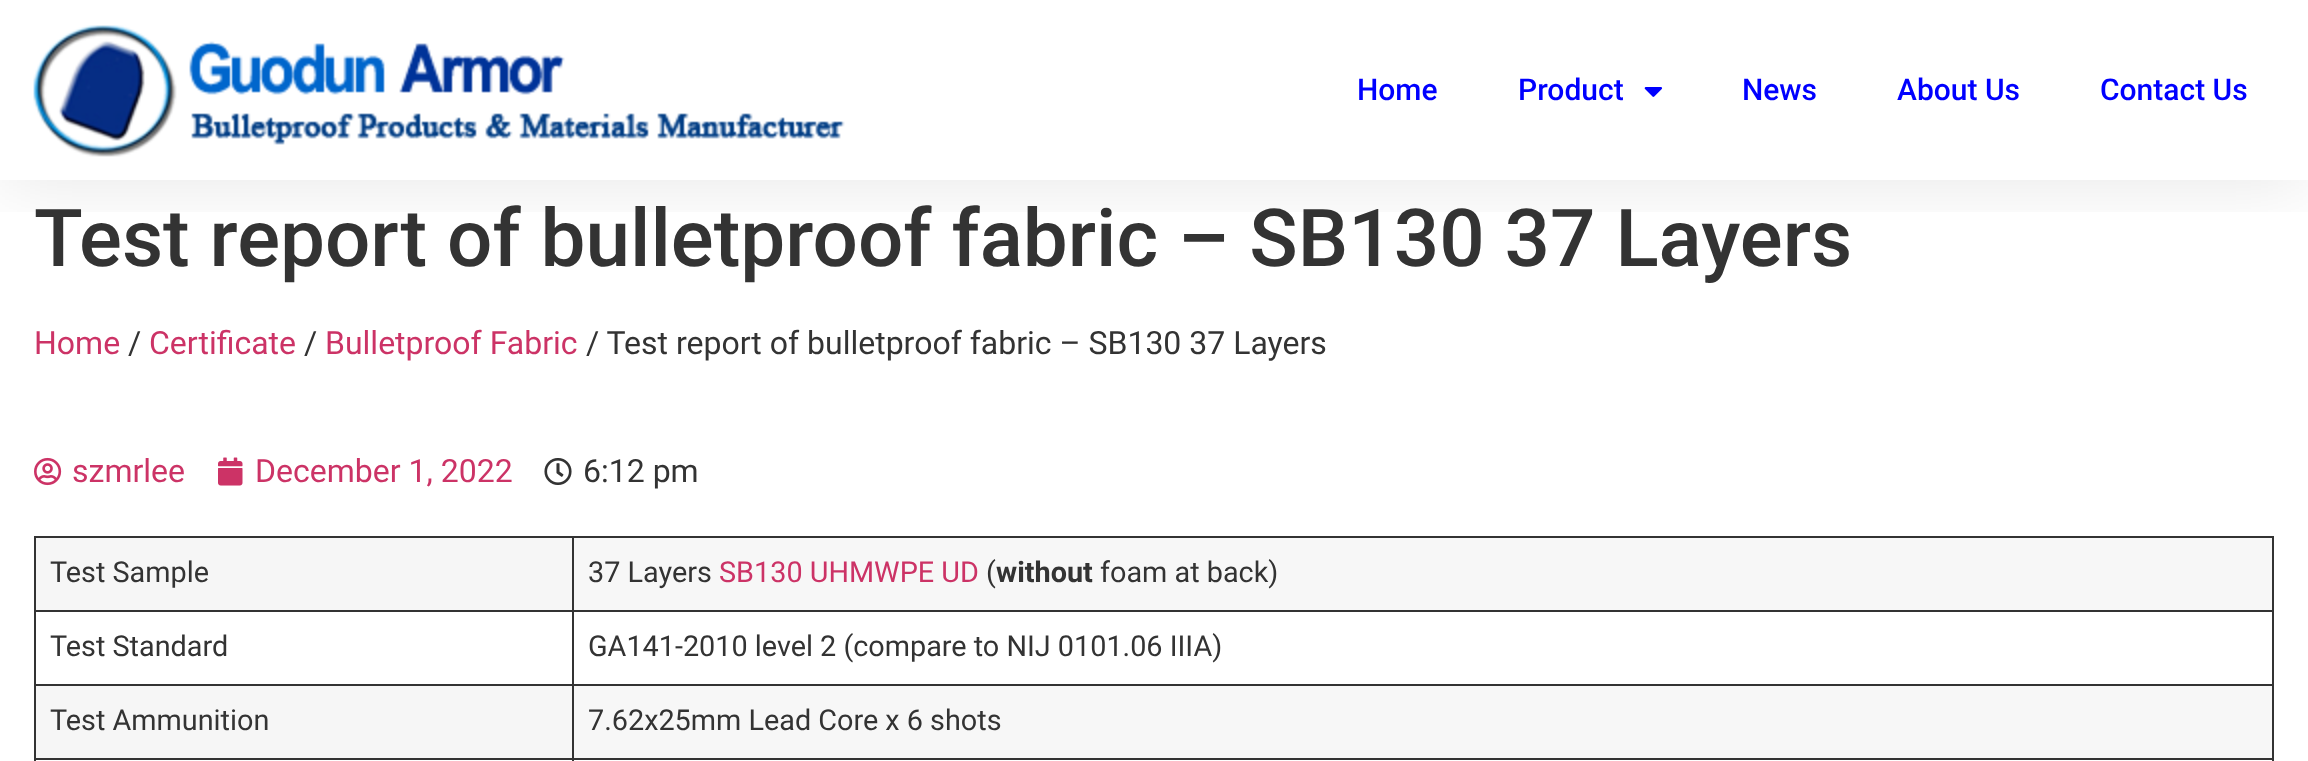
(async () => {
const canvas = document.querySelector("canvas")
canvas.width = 2308
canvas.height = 761
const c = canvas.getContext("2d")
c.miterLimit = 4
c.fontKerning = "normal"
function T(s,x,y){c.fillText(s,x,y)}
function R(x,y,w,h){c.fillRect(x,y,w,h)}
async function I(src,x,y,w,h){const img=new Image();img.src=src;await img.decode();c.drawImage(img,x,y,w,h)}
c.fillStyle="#fff"
R(0,0,2308,761)
c.save()
c.beginPath()
c.rect(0,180,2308,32)
c.clip()
c.fillStyle="#0000001a"
c.filter="blur(38px)"
c.beginPath()
c.rect(0,0,2308,180)
c.fill()
c.filter="none"
c.restore()
await I("1.png",33,25,812,132)
c.font="500 30px Roboto"
c.fillStyle="#00f"
T("Home",1357,100)
T("Product",1518,100)
await I("2.png",1644,87,19,10)
T("News",1742,100)
T("About Us",1897,100)
T("Contact Us",2100,100)
c.font="500 80px Roboto"
c.fillStyle="#333"
T("Test report of bulletproof fabric – SB130 37 Layers",34,266)
c.font="32px Roboto"
c.fillStyle="#c36"
T("Home",34,354)
c.fillStyle="#333"
T("/",128,354)
c.fillStyle="#c36"
T("Certificate",149,354)
c.fillStyle="#333"
T("/",304,354)
c.fillStyle="#c36"
T("Bulletproof Fabric",325,354)
c.fillStyle="#333"
T("/ Test report of bulletproof fabric – SB130 37 Layers",586,354)
await I("3.png",34,457,28,29)
c.fillStyle="#c36"
T("szmrlee",72,482)
await I("4.png",218,457,25,29)
T("December 1, 2022",255,482)
await I("5.png",544,458,28,27)
c.fillStyle="#333"
T("6:12 pm",583,482)
c.fillStyle="#f6f6f6"
R(36,538,536,72)
c.fillStyle="#333"
R(572,536,1702,2)
R(572,610,1702,2)
R(572,684,1702,2)
R(572,758,1702,2)
R(572,758,2,3)
R(34,758,540,2)
R(572,684,2,76)
R(34,684,540,2)
R(572,610,2,76)
R(34,610,540,2)
R(572,536,2,76)
R(34,536,540,2)
R(34,758,2,3)
R(34,684,2,76)
R(34,610,2,76)
R(34,536,2,76)
c.font="28.8px Roboto"
T("Test Sample",50,582)
c.fillStyle="#f7f7f7"
R(574,538,1698,72)
c.fillStyle="#333"
R(2272,758,2,3)
R(2272,684,2,76)
R(2272,610,2,76)
R(2272,536,2,76)
T("37 Layers",588,582)
c.fillStyle="#c36"
T("SB130 UHMWPE UD",719,582)
c.fillStyle="#333"
T("(",986,582)
c.font="bold 28.8px Roboto"
T("without",996,582)
c.font="28.8px Roboto"
T("foam at back)",1100,582)
T("Test Standard",50,656)
T("GA141-2010 level 2 (compare to NIJ 0101.06 IIIA)",588,656)
c.fillStyle="#f6f6f6"
R(36,686,536,72)
c.fillStyle="#333"
T("Test Ammunition",50,730)
c.fillStyle="#f7f7f7"
R(574,686,1698,72)
c.fillStyle="#333"
T("7.62x25mm Lead Core x 6 shots",588,730)
})()
